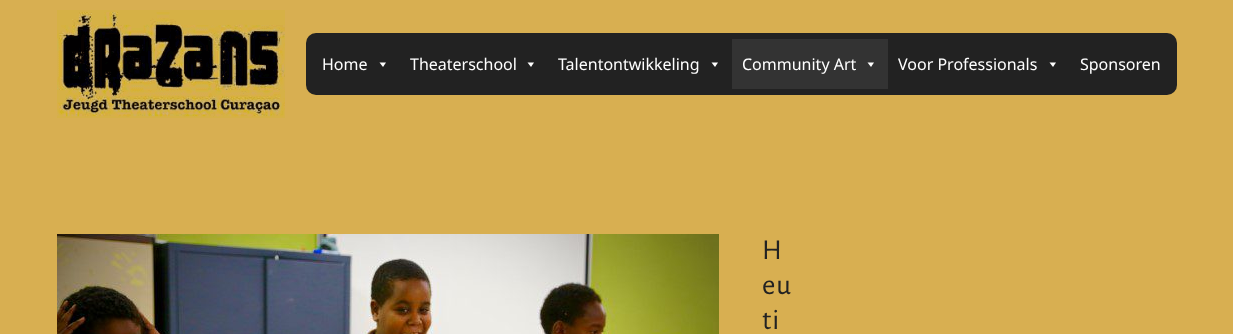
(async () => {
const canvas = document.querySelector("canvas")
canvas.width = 1233
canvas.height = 334
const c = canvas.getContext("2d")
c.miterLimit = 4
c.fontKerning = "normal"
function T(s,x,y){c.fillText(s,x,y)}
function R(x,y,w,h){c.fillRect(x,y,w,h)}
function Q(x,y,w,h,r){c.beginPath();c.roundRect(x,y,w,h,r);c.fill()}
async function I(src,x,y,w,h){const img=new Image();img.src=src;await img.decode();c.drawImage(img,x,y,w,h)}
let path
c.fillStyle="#d8af51"
R(0,0,1233,334)
await I("1.png",57,10,228,108)
c.fillStyle="#222"
Q(306,33,871,62,10)
c.font="16px Noto Sans"
c.fillStyle="#fff"
T("Home",322,70)
path = new Path2D("M386 62.5l-3 4.5l-3.5-4.5z")
c.fill(path)
T("Theaterschool",410,70)
path = new Path2D("M534 62.5l-3 4.5l-3.5-4.5z")
c.fill(path)
T("Talentontwikkeling",558,70)
path = new Path2D("M718 62.5l-3 4.5l-3.5-4.5z")
c.fill(path)
c.fillStyle="#333"
R(732,39,156,50)
c.fillStyle="#fff"
T("Community Art",742,70)
path = new Path2D("M874 62.5l-3 4.5l-3.5-4.5z")
c.fill(path)
T("Voor Professionals",898,70)
path = new Path2D("M1056 62.5l-3 4.5l-3.5-4.5z")
c.fill(path)
T("Sponsoren",1080,70)
await I("2.png",57,234,662,100)
c.letterSpacing="1px"
c.font="29px Alegreya Sans"
c.fillStyle="#222"
T("H",762,259)
T("eu",762,294)
T("ti",762,329)
})()
